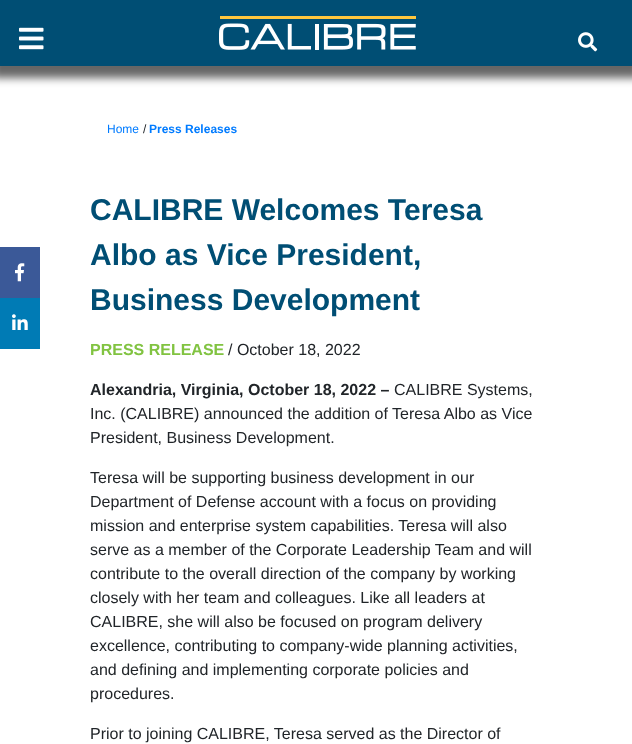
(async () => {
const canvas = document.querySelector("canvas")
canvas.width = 632
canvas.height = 744
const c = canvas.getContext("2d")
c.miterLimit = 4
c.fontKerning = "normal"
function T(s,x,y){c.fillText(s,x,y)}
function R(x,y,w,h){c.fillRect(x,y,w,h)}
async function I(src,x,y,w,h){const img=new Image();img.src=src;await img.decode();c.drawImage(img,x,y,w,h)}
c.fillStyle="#fff"
R(0,0,632,744)
c.fillStyle="#00000099"
c.filter="blur(4px)"
c.beginPath()
c.rect(-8,-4,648,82)
c.fill()
c.filter="none"
c.fillStyle="#004e74"
R(0,0,632,66)
await I("1.png",19,27,25,23)
await I("2.png",219,16,197,34)
await I("3.png",578,32,20,20)
c.font="12px Liberation Sans"
c.fillStyle="#007bff"
T("Home",107,133)
c.fillStyle="#212529"
T("/",143,133)
c.font="bold 12px Liberation Sans"
c.fillStyle="#007bff"
T("Press Releases",149,133)
c.fillStyle="#3b5998"
R(0,247,40,51)
await I("4.png",15,263,10,19)
c.fillStyle="#007bb5"
R(0,298,40,51)
await I("5.png",12,314,16,16)
c.font="bold 30px Liberation Sans"
c.fillStyle="#004e74"
T("CALIBRE Welcomes Teresa",90,220)
T("Albo as Vice President,",90,265)
T("Business Development",90,310)
c.font="bold 16px Liberation Sans"
c.fillStyle="#81c341"
T("PRESS RELEASE",90,355)
c.font="16px Liberation Sans"
c.fillStyle="#212529"
T("/ October 18, 2022",228,355)
c.font="bold 16px Liberation Sans"
T("Alexandria, Virginia, October 18, 2022 –",90,395)
c.font="16px Liberation Sans"
T("CALIBRE Systems,",394,395)
T("Inc. (CALIBRE) announced the addition of Teresa Albo as Vice",90,419)
T("President, Business Development.",90,443)
T("Teresa will be supporting business development in our",90,483)
T("Department of Defense account with a focus on providing",90,507)
T("mission and enterprise system capabilities. Teresa will also",90,531)
T("serve as a member of the Corporate Leadership Team and will",90,555)
T("contribute to the overall direction of the company by working",90,579)
T("closely with her team and colleagues. Like all leaders at",90,603)
T("CALIBRE, she will also be focused on program delivery",90,627)
T("excellence, contributing to company-wide planning activities,",90,651)
T("and defining and implementing corporate policies and",90,675)
T("procedures.",90,699)
T("Prior to joining CALIBRE, Teresa served as the Director of",90,739)
})()
